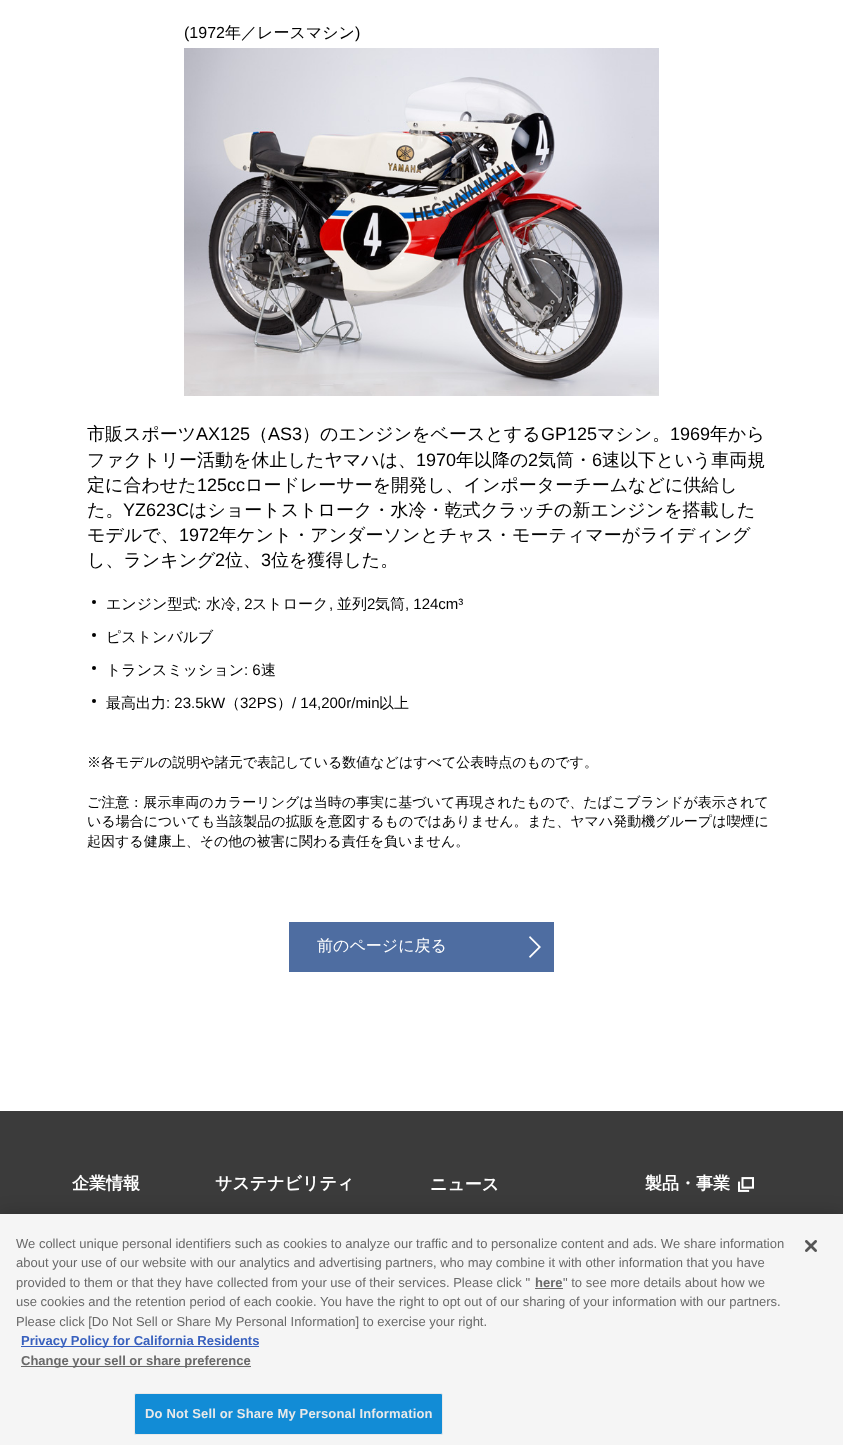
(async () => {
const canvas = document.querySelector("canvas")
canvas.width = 843
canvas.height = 1445
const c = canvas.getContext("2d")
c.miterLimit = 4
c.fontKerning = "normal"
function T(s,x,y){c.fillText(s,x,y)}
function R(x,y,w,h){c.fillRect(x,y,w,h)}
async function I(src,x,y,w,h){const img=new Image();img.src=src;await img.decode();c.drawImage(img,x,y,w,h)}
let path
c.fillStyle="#fff"
R(0,0,843,1445)
c.font="16px Liberation Sans"
c.fillStyle="#000"
T("(1972",184,38)
c.font="500 16px WenQuanYi Zen Hei"
T("年／レースマシン",225,38)
c.font="16px Liberation Sans"
T(")",355,38)
await I("1.png",184,48,475,348)
c.font="500 18px WenQuanYi Zen Hei"
T("市販スポーツ",87,440)
c.font="18px Liberation Sans"
T("AX125",196,440)
c.font="500 18px WenQuanYi Zen Hei"
T("（",250,440)
c.font="18px Liberation Sans"
T("AS3",268,440)
c.font="500 18px WenQuanYi Zen Hei"
T("）のエンジンをベースとする",302,440)
c.font="18px Liberation Sans"
T("GP125",541,440)
c.font="500 18px WenQuanYi Zen Hei"
T("マシン。",597,440)
c.font="18px Liberation Sans"
T("1969",670,440)
c.font="500 18px WenQuanYi Zen Hei"
T("年から",710,440)
T("ファクトリー活動を休止したヤマハは、",87,466)
c.font="18px Liberation Sans"
T("1970",416,466)
c.font="500 18px WenQuanYi Zen Hei"
T("年以降の",456,466)
c.font="18px Liberation Sans"
T("2",528,466)
c.font="500 18px WenQuanYi Zen Hei"
T("気筒・",538,466)
c.font="18px Liberation Sans"
T("6",592,466)
c.font="500 18px WenQuanYi Zen Hei"
T("速以下という車両規",602,466)
T("定に合わせた",87,491)
c.font="18px Liberation Sans"
T("125cc",197,491)
c.font="500 18px WenQuanYi Zen Hei"
T("ロードレーサーを開発し、インポーターチームなどに供給し",245,491)
T("た。",87,516)
c.font="18px Liberation Sans"
T("YZ623C",123,516)
c.font="500 18px WenQuanYi Zen Hei"
T("はショートストローク・水冷・乾式クラッチの新エンジンを搭載した",189,516)
T("モデルで、",87,541)
c.font="18px Liberation Sans"
T("1972",179,541)
c.font="500 18px WenQuanYi Zen Hei"
T("年ケント・アンダーソンとチャス・モーティマーがライディング",219,541)
T("し、ランキング",87,566)
c.font="18px Liberation Sans"
T("2",215,566)
c.font="500 18px WenQuanYi Zen Hei"
T("位、",225,566)
c.font="18px Liberation Sans"
T("3",261,566)
c.font="500 18px WenQuanYi Zen Hei"
T("位を獲得した。",271,566)
c.beginPath()
c.arc(94,602,2,0,7)
c.fill()
c.font="500 15px WenQuanYi Zen Hei"
T("エンジン型式",106,609)
c.font="15px Liberation Sans"
T(":",197,609)
c.font="500 15px WenQuanYi Zen Hei"
T("水冷",206,609)
c.font="15px Liberation Sans"
T(", 2",236,609)
c.font="500 15px WenQuanYi Zen Hei"
T("ストローク",252,609)
c.font="15px Liberation Sans"
T(",",329,609)
c.font="500 15px WenQuanYi Zen Hei"
T("並列",337,609)
c.font="15px Liberation Sans"
T("2",367,609)
c.font="500 15px WenQuanYi Zen Hei"
T("気筒",375,609)
c.font="15px Liberation Sans"
T(", 124cm³",405,609)
c.beginPath()
c.arc(94,635,2,0,7)
c.fill()
c.font="500 15px WenQuanYi Zen Hei"
T("ピストンバルブ",106,642)
c.beginPath()
c.arc(94,668,2,0,7)
c.fill()
T("トランスミッション",106,675)
c.font="15px Liberation Sans"
T(": 6",244,675)
c.font="500 15px WenQuanYi Zen Hei"
T("速",261,675)
c.beginPath()
c.arc(94,701,2,0,7)
c.fill()
T("最高出力",106,708)
c.font="15px Liberation Sans"
T(": 23.5kW",166,708)
c.font="500 15px WenQuanYi Zen Hei"
T("（",225,708)
c.font="15px Liberation Sans"
T("32PS",240,708)
c.font="500 15px WenQuanYi Zen Hei"
T("）",277,708)
c.font="15px Liberation Sans"
T("/ 14,200r/min",292,708)
c.font="500 15px WenQuanYi Zen Hei"
T("以上",379,708)
c.font="500 14px WenQuanYi Zen Hei"
T("※各モデルの説明や諸元で表記している数値などはすべて公表時点のものです。",87,767)
T("ご注意：展示車両のカラーリングは当時の事実に基づいて再現されたもので、たばこブランドが表示されて",87,807)
T("いる場合についても当該製品の拡販を意図するものではありません。また、ヤマハ発動機グループは喫煙に",87,826)
T("起因する健康上、その他の被害に関わる責任を負いません。",87,846)
c.fillStyle="#4e6da1"
R(289,922,265,50)
c.font="500 16px WenQuanYi Zen Hei"
c.fillStyle="#fff"
T("前のページに戻る",317,951)
path = new Path2D("M541 947l-11 11l-1-1.5l9.5-9.5l-9.5-9.5l1-1.5z")
c.fill(path,"evenodd")
c.fillStyle="#3b3b3b"
R(0,1111,843,103)
c.font="bold 17px WenQuanYi Zen Hei"
c.fillStyle="#fff"
T("企業情報",72,1189)
T("サステナビリティ",215,1189)
T("ニュース",430,1190)
T("製品・事業",645,1189)
await I("2.png",738,1177,16,15)
c.fillStyle="#00000033"
c.filter="blur(9px)"
c.beginPath()
c.rect(0,1214,843,231)
c.fill()
c.filter="none"
c.fillStyle="#f5f5f5"
R(0,1214,843,231)
c.font="13px Liberation Sans"
c.fillStyle="#696969"
T("We collect unique personal identifiers such as cookies to analyze our traffic and to personalize content and ads. We share information",16,1248)
T("about your use of our website with our analytics and advertising partners, who may combine it with other information that you have",16,1267)
T("provided to them or that they have collected from your use of their services. Please click \"",16,1287)
c.font="bold 13px Liberation Sans"
T("here",535,1287)
R(535,1288,28,1)
c.font="13px Liberation Sans"
T("\" to see more details about how we",563,1287)
T("use cookies and the retention period of each cookie. You have the right to opt out of our sharing of your information with our partners.",16,1306)
T("Please click [Do Not Sell or Share My Personal Information] to exercise your right.",16,1326)
c.fillStyle="#3860be"
R(21,1346,238,1)
c.font="bold 13px Liberation Sans"
T("Privacy Policy for California Residents",21,1345)
c.fillStyle="#696969"
R(21,1366,230,1)
T("Change your sell or share preference",21,1365)
c.fillStyle="#128cd6"
c.beginPath()
c.roundRect(134.5,1393.5,308,41,1.5)
c.fill()
c.strokeStyle="#e9e9e9"
c.stroke()
c.letterSpacing="0.15px"
c.fillStyle="#e9e9e9"
T("Do Not Sell or Share My Personal Information",145,1418)
await I("3.png",805,1240,12,12)
})()
